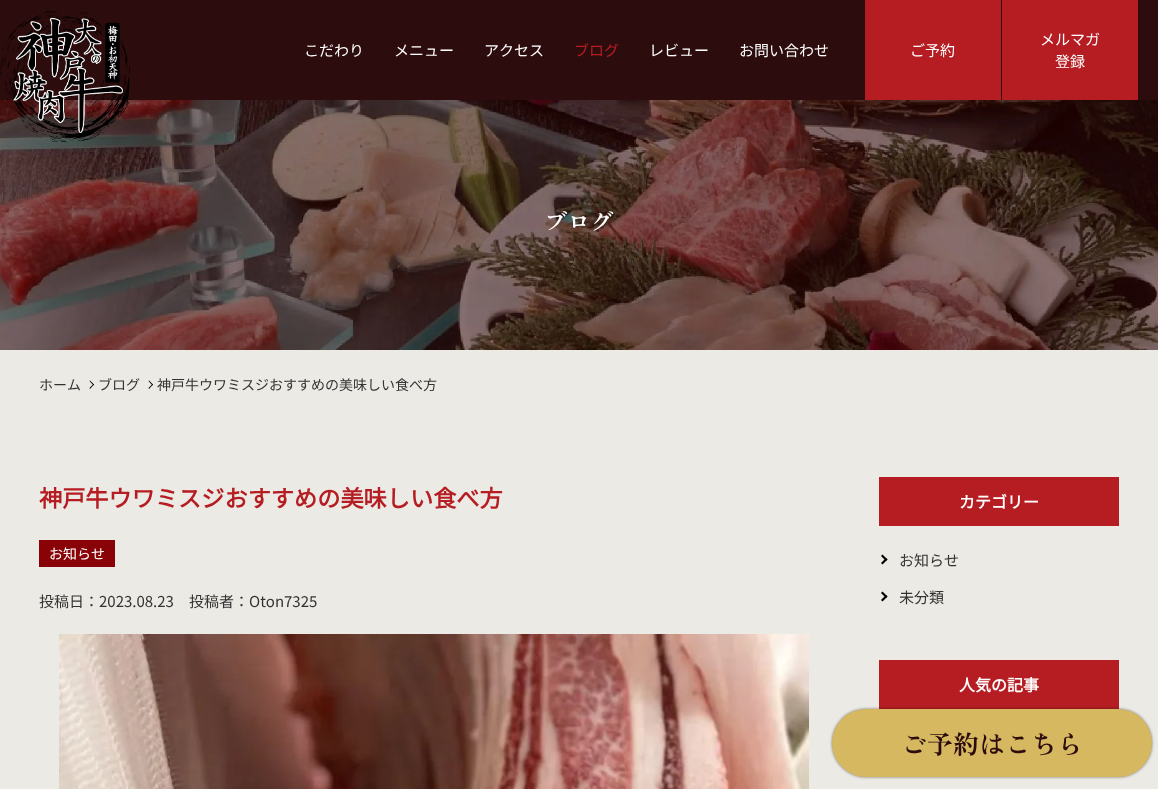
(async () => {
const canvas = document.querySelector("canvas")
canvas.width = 1158
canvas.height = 789
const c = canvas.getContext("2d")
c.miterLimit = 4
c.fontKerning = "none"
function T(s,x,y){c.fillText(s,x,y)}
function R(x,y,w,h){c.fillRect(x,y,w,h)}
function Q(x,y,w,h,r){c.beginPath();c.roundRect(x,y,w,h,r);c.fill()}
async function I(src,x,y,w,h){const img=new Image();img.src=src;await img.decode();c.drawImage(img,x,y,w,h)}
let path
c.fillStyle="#eceae4"
R(0,0,1158,789)
c.fillStyle="#2d0c0d"
R(0,0,1158,100)
await I("2.png",0,100,1158,250)
await I("1.png",0,10,130,133)
c.font="100 15px Noto Sans JP"
c.fillStyle="#fff"
T("こだわり",304,56)
T("メニュー",394,56)
T("アクセス",484,56)
c.fillStyle="#b61d22"
T("ブログ",574,56)
c.fillStyle="#fff"
T("レビュー",649,56)
T("お問い合わせ",739,56)
c.fillStyle="#b61d22"
R(865,0,136,100)
c.fillStyle="#fff"
T("ご予約",910,56)
c.fillStyle="#b61d22"
R(1002,0,136,100)
c.fillStyle="#fff"
T("メルマガ",1040,45)
T("登録",1055,67)
c.font="bold 23.2px Zen Old Mincho"
T("ブログ",544,230)
c.font="100 14px Noto Sans JP"
c.fillStyle="#333"
T("ホーム",39,390)
c.fillStyle="#000"
path = new Path2D("M90 380.5l4 4l-.5 1l-4-4.5z")
c.fill(path)
path = new Path2D("M93.5 384l.5 .5l-4 4.5l-.5-1z")
c.fill(path)
c.fillStyle="#333"
T("ブログ",98,390)
c.fillStyle="#000"
path = new Path2D("M149 380.5l4 4l-.5 1l-4-4.5z")
c.fill(path)
path = new Path2D("M152.5 384l.5 .5l-4 4.5l-.5-1z")
c.fill(path)
c.fillStyle="#333"
T("神戸牛ウワミスジおすすめの美味しい食べ方",157,390)
c.font="bold 23.2px Noto Sans JP"
c.fillStyle="#b61d22"
T("神戸牛ウワミスジおすすめの美味しい食べ方",39,507)
c.fillStyle="#880207"
R(39,540,76,27)
c.font="100 14px Noto Sans JP"
c.fillStyle="#fff"
T("お知らせ",49,559)
c.font="100 15px Noto Sans JP"
c.fillStyle="#333"
T("投稿日：2023.08.23",39,607)
T("投稿者：Oton7325",189,607)
await I("3.png",59,634,750,155)
c.fillStyle="#b61d22"
R(879,477,240,49)
c.font="bold 16px Noto Sans JP"
c.fillStyle="#fff"
T("カテゴリー",959,508)
c.fillStyle="#000"
path = new Path2D("M882.5 554.5l5 5l-1.5 1.5l-5-5z")
c.fill(path)
path = new Path2D("M886 558l1.5 1.5l-5 5l-1.5-1.5z")
c.fill(path)
c.font="100 15px Noto Sans JP"
c.fillStyle="#333"
T("お知らせ",899,566)
c.fillStyle="#000"
path = new Path2D("M882.5 591.5l5 5l-1.5 1.5l-5-5z")
c.fill(path)
path = new Path2D("M886 595l1.5 1.5l-5 5l-1.5-1.5z")
c.fill(path)
c.fillStyle="#333"
T("未分類",899,603)
c.fillStyle="#b61d22"
R(879,660,240,49)
c.font="bold 16px Noto Sans JP"
c.fillStyle="#fff"
T("人気の記事",959,691)
c.fillStyle="#00000080"
c.filter="blur(1.5px)"
c.beginPath()
c.roundRect(832,709,320,68,34)
c.fill()
c.filter="none"
c.fillStyle="#d5b860"
Q(832,709,320,68,34)
c.font="bold 26px Zen Old Mincho"
c.fillStyle="#2d0c0d"
T("ご予約はこちら",901,754)
})()
